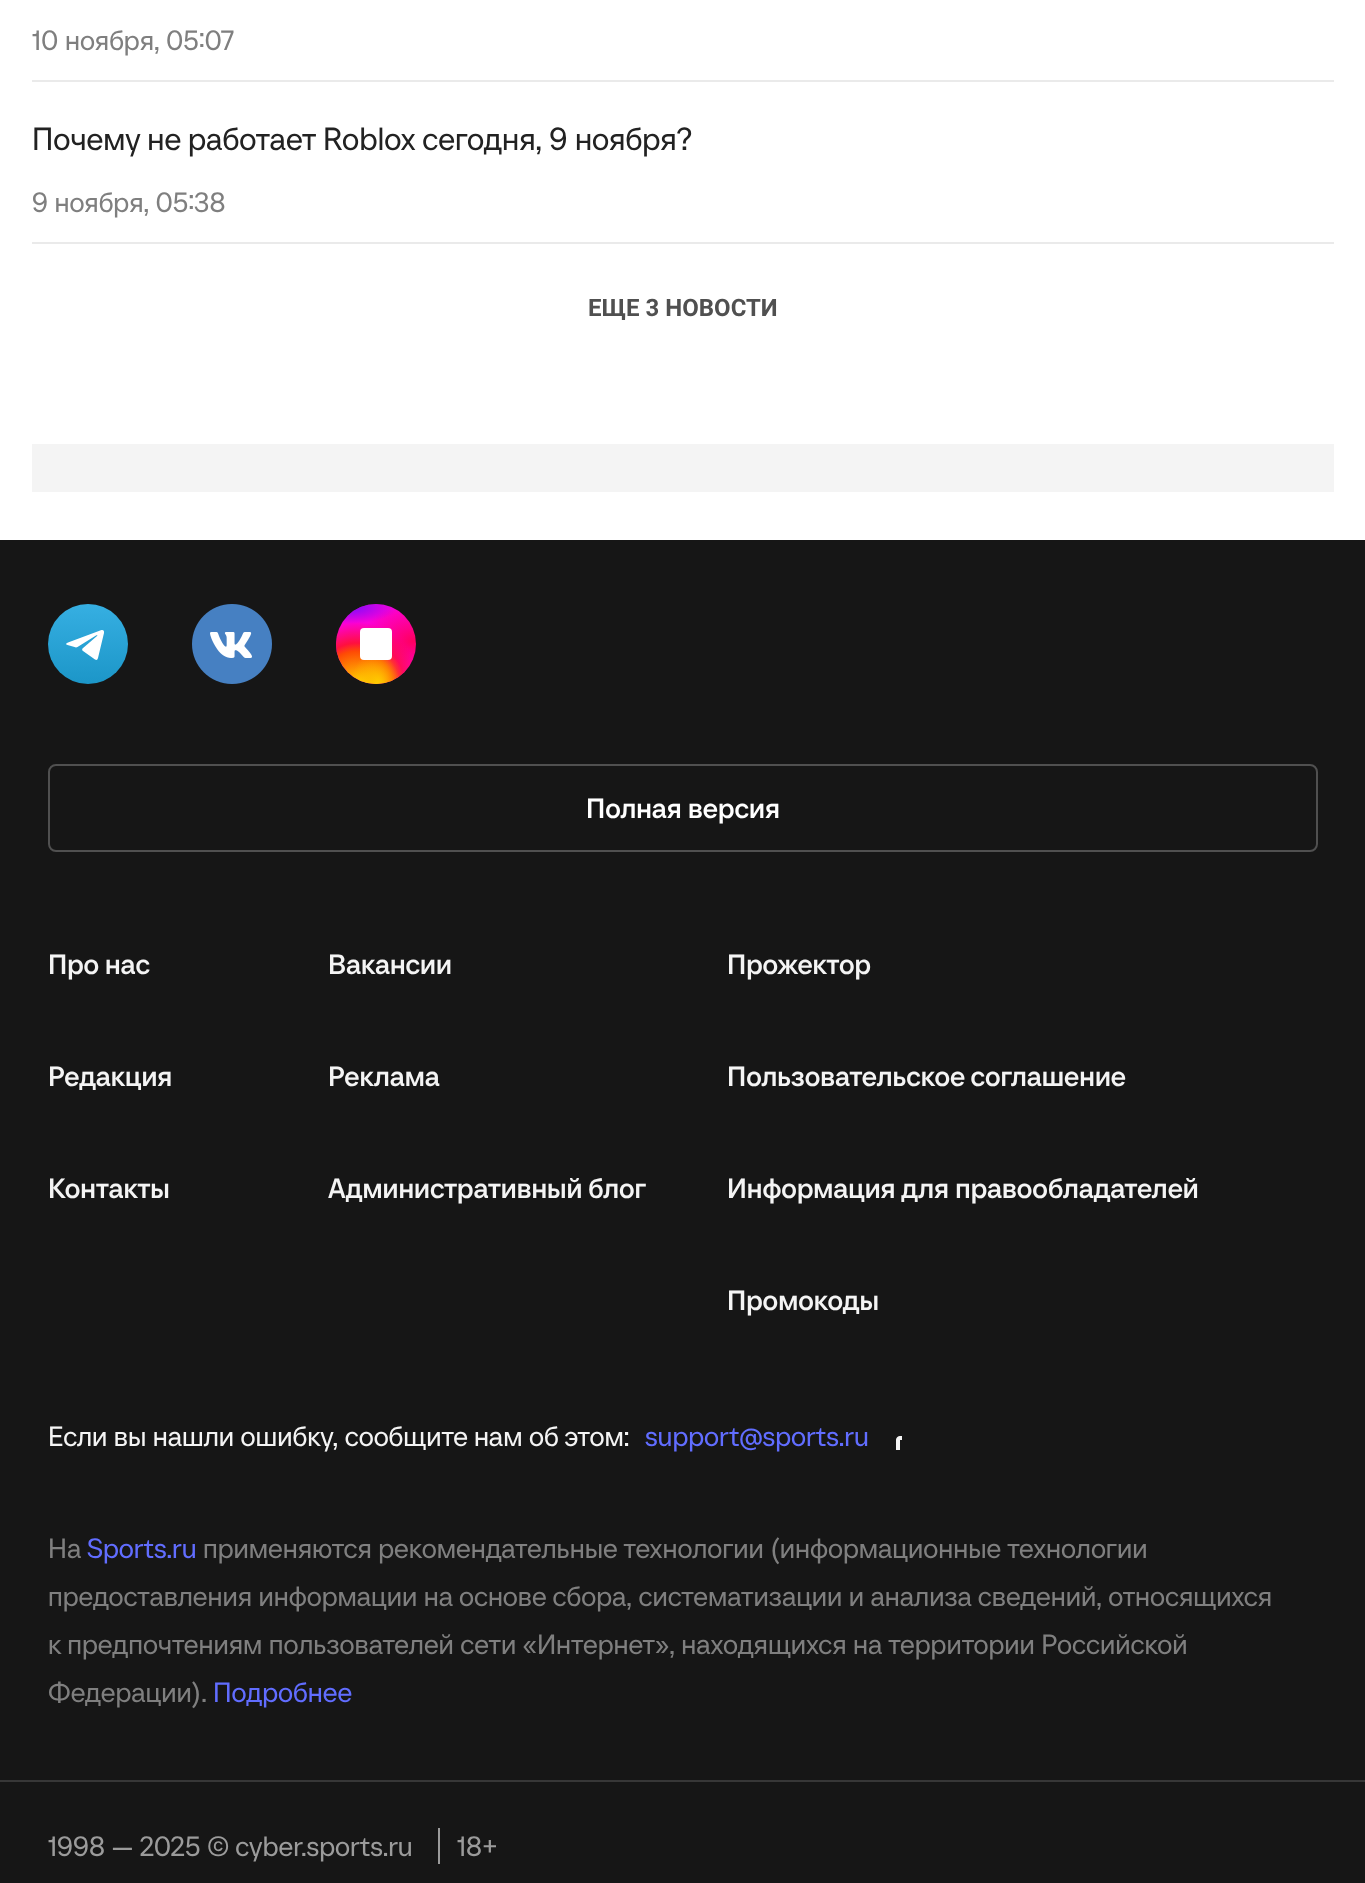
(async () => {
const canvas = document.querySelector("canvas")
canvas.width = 1365
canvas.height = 1883
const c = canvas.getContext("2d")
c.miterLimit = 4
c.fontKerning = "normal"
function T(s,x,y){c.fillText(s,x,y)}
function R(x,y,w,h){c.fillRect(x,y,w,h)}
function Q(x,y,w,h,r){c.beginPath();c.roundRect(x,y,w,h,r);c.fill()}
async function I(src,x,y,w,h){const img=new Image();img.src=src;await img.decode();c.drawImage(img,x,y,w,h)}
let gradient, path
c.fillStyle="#fff"
R(0,0,1365,1883)
c.fillStyle="#eaeaea"
R(32,80,1302,2)
c.font="28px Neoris"
c.fillStyle="#7f7f7f"
T("10 ноября, 05:07",32,50)
c.fillStyle="#eaeaea"
R(32,242,1302,2)
c.font="32px Neoris"
c.fillStyle="#222"
T("Почему не работает Roblox сегодня, 9 ноября?",32,150)
c.font="28px Neoris"
c.fillStyle="#7f7f7f"
T("9 ноября, 05:38",32,212)
c.font="bold 24px Roboto"
c.fillStyle="#505050"
T("ЕЩЕ 3 НОВОСТИ",588,316)
c.fillStyle="#f4f4f4"
R(32,444,1302,48)
c.fillStyle="#161616"
R(0,540,1365,1343)
gradient = c.createLinearGradient(48,604,48,684)
gradient.addColorStop(0,"#36afe2")
gradient.addColorStop(1,"#1c96c8")
c.fillStyle = gradient
c.beginPath()
c.arc(88,644,40,0,7)
c.fill()
c.fillStyle="#fff"
path = new Path2D("M82.5 648.5c-.5 .5-.5 2 .5 2.5l12 8.5c1.5 1 2.5 .5 3-1.5l6-25c.5-2.5-1-3.5-2.5-3l-33.5 12.5c-2.5 1-2.5 2-.5 2.5l7 2c1 .5 2 .5 3 0l18.5-11.5c1-.5 2 0 1 .5z")
c.fill(path)
await I("1.png",192,604,80,80)
gradient = c.createRadialGradient(413,883.54,0,413,883.54,51)
gradient.addColorStop(0,"#ff005f")
gradient.addColorStop(1,"#fc01d8")
c.fillStyle = gradient
c.beginPath()
c.arc(376,644,40,0,7)
c.save()
c.clip()
c.scale(1,37 / 51)
c.fillRect(0,0,1365,2596)
c.restore()
gradient = c.createRadialGradient(357,649.41,0,357,649.41,64)
gradient.addColorStop(0,"#fc0")
gradient.addColorStop(.12,"#fc0")
gradient.addColorStop(.57,"#fe4a05")
gradient.addColorStop(.69,"#ff0f3f")
gradient.addColorStop(1,"#ff0f3f00")
c.fillStyle = gradient
c.beginPath()
c.arc(376,644,40,0,7)
c.save()
c.clip()
c.scale(1,68 / 64)
c.fillRect(0,0,1365,1773)
c.restore()
gradient = c.createRadialGradient(378,522.29,0,378,522.29,26)
gradient.addColorStop(0,"#fc0")
gradient.addColorStop(1,"#ffcc0000")
c.fillStyle = gradient
c.beginPath()
c.arc(376,644,40,0,7)
c.save()
c.clip()
c.scale(1,34 / 26)
c.fillRect(0,0,1365,1440)
c.restore()
gradient = c.createRadialGradient(347,1821,0,347,1821,51)
gradient.addColorStop(0,"#780cff")
gradient.addColorStop(1,"#780cff00")
c.fillStyle = gradient
c.beginPath()
c.arc(376,644,40,0,7)
c.save()
c.clip()
c.scale(1,17 / 51)
c.fillRect(0,0,1365,5649)
c.restore()
c.fillStyle="#fff"
Q(360,628,32,32,4)
c.beginPath()
c.roundRect(49,765,1268,86,7)
c.strokeStyle="#505050"
c.lineWidth=2
c.stroke()
c.font="500 28px Neoris"
T("Полная версия",586,818)
c.fillStyle="#f4f4f4"
T("Про нас",48,974)
T("Редакция",48,1086)
T("Контакты",48,1198)
T("Вакансии",328,974)
T("Реклама",328,1086)
T("Административный блог",328,1198)
T("Прожектор",727,974)
T("Пользовательское соглашение",727,1086)
T("Информация для правообладателей",727,1198)
T("Промокоды",727,1310)
c.font="28px Neoris"
T("Если вы нашли ошибку, сообщите нам об этом:",48,1446)
c.fillStyle="#616dff"
T("support@sports.ru",645,1446)
await I("2.png",896,1436,6,14)
c.fillStyle="#7f7f7f"
T("На",48,1558)
c.fillStyle="#616dff"
T("Sports.ru",87,1558)
c.fillStyle="#7f7f7f"
T("применяются рекомендательные технологии (информационные технологии",203,1558)
T("предоставления информации на основе сбора, систематизации и анализа сведений, относящихся",48,1606)
T("к предпочтениям пользователей сети «Интернет», находящихся на территории Российской",48,1654)
T("Федерации).",48,1702)
c.fillStyle="#616dff"
T("Подробнее",213,1702)
c.fillStyle="#373737"
R(0,1780,1365,2)
c.fillStyle="#9b9b9b"
T("1998 — 2025 © cyber.sports.ru",48,1856)
T("18+",457,1856)
R(438,1828,2,36)
})()
